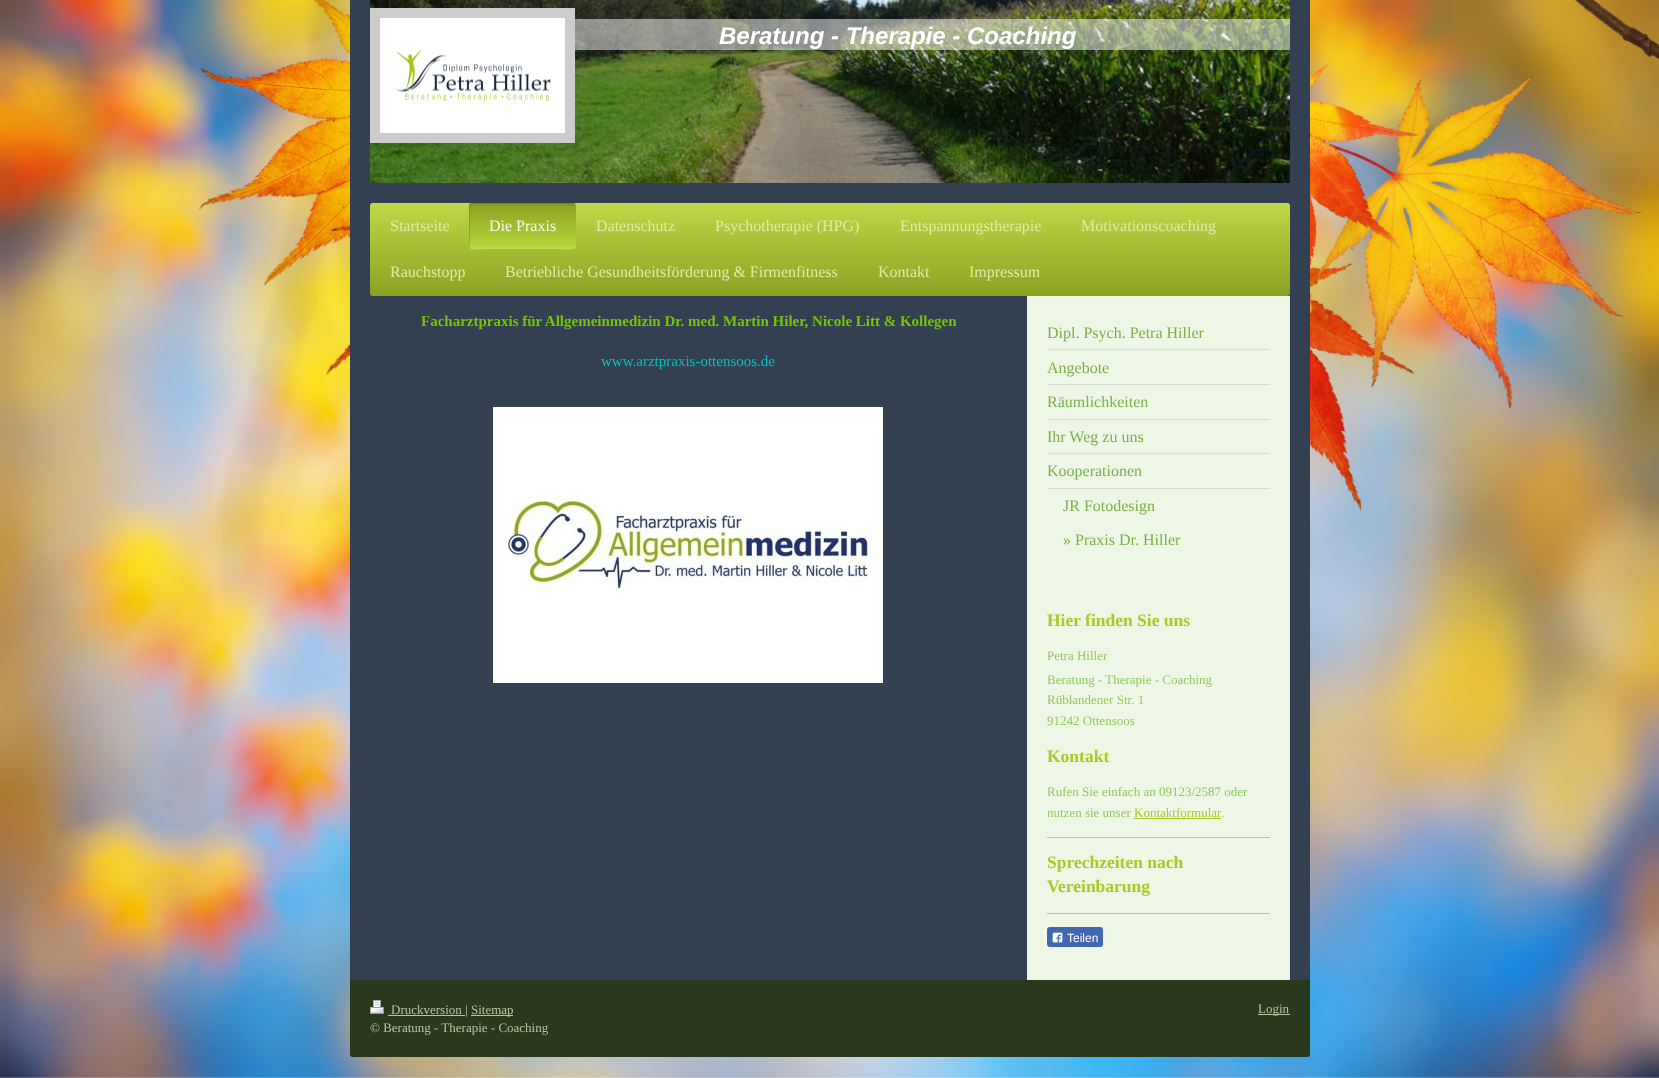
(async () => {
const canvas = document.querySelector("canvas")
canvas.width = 1659
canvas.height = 1078
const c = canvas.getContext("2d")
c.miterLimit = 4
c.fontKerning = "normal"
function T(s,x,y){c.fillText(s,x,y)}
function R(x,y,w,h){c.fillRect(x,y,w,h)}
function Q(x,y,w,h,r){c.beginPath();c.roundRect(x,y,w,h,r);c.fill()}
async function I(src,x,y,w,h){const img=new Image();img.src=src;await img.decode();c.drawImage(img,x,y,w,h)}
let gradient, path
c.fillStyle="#fff"
R(0,0,1659,1078)
await I("1.png",0,0,1659,1078)
c.fillStyle="#324051"
path = new Path2D("M350-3h960v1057c0 1.5-1.5 3-3 3h-954c-1.5 0-3-1.5-3-3z")
c.fill(path)
await I("2.png",370,0,920,183)
c.strokeStyle="#ccc"
c.lineWidth=10
c.strokeRect(375,13,195,125)
await I("3.png",380,18,185,115)
c.fillStyle="#ffffff80"
R(575,19,715,31)
c.font="italic bold 24px Liberation Sans"
c.fillStyle="#fff"
T("Beratung - Therapie - Coaching",719,44)
gradient = c.createLinearGradient(370,203,370,296)
gradient.addColorStop(0,"#bed847")
gradient.addColorStop(1,"#8ba222")
c.fillStyle = gradient
Q(370,203,920,93,3)
c.fillStyle="#c1d669"
path = new Path2D("M373 204h914c2 0 3 1 3 3c0-2-1-4-3-4h-914c-2 0-3 2-3 4c0-2 1-3 3-3z")
c.fill(path)
c.font="16px Liberation Serif"
c.fillStyle="#dfeca7"
T("Startseite",390,231)
gradient = c.createLinearGradient(469,249,469,203)
gradient.addColorStop(0,"#b9d63b")
gradient.addColorStop(1,"#8ba222")
c.fillStyle = gradient
Q(469,203,107,46,3)
c.fillStyle="#00000026"
path = new Path2D("M473 204h102c0-1-1-1-2-1h-101c-2 0-3 1-3 3v40c0 1 0 2 1 2v-34c0-3-2-10 3-10z")
c.fill(path)
c.fillStyle="#0000000a"
path = new Path2D("M472 206h101c2 0 3 1 3 3v-3c0-2-1-3-3-3h-101c-2 0-3 1-3 3v3c0-2 1-3 3-3z")
c.fill(path)
c.fillStyle="#ffffff14"
path = new Path2D("M469 243v3c0 2 1 3 3 3h101c2 0 3-1 3-3v-3c0 2-1 3-3 3h-101c-2 0-3-1-3-3z")
c.fill(path)
c.fillStyle="#ffffff1a"
path = new Path2D("M469 245c0 9 17 4 20 4h67c3 0 20 5 20-4c0 2-1 3-3 3h-101c-2 0-3-1-3-3z")
c.fill(path)
c.fillStyle="#f7faea"
T("Die Praxis",489,231)
c.fillStyle="#dfeca7"
T("Datenschutz",596,231)
T("Psychotherapie (HPG)",715,231)
T("Entspannungstherapie",900,231)
T("Motivationscoaching",1081,231)
T("Rauchstopp",390,277)
T("Betriebliche Gesundheitsförderung & Firmenfitness",505,277)
T("Kontakt",878,277)
T("Impressum",969,277)
c.font="bold 15px Liberation Serif"
c.fillStyle="#73c606"
T("Facharztpraxis für Allgemeinmedizin Dr. med. Martin Hiler, Nicole Litt & Kollegen",421,326)
c.font="15px Liberation Serif"
c.fillStyle="#03c1c1"
T("www.arztpraxis-ottensoos.de",601,366)
await I("4.png",493,407,390,276)
c.fillStyle="#eef7e6"
R(1027,296,263,684)
c.fillStyle="#d6decf"
R(1047,349,223,1)
c.font="16px Liberation Serif"
c.fillStyle="#79b047"
T("Dipl. Psych. Petra Hiller",1047,338)
c.fillStyle="#d6decf"
R(1047,384,223,1)
c.fillStyle="#79b047"
T("Angebote",1047,373)
c.fillStyle="#d6decf"
R(1047,419,223,1)
c.fillStyle="#79b047"
T("Räumlichkeiten",1047,407)
c.fillStyle="#d6decf"
R(1047,453,223,1)
c.fillStyle="#79b047"
T("Ihr Weg zu uns",1047,442)
c.fillStyle="#d6decf"
R(1047,488,223,1)
c.fillStyle="#79b047"
T("Kooperationen",1047,476)
T("JR Fotodesign",1063,511)
T("» Praxis Dr. Hiller",1063,545)
c.font="bold 17.5px Liberation Serif"
c.fillStyle="#abc82a"
T("Hier finden Sie uns",1047,626)
c.font="13px Liberation Serif"
c.fillStyle="#8fca5b"
T("Petra Hiller",1047,660)
T("Beratung - Therapie - Coaching",1047,684)
T("Rüblandener Str. 1",1047,704)
T("91242 Ottensoos",1047,725)
c.font="bold 17.5px Liberation Serif"
c.fillStyle="#abc82a"
T("Kontakt",1047,762)
c.font="13px Liberation Serif"
c.fillStyle="#8fca5b"
T("Rufen Sie einfach an 09123/2587 oder",1047,796)
T("nutzen sie unser",1047,817)
c.fillStyle="#abc82a"
T("Kontaktformular",1134,817)
R(1134,818,87,1)
c.fillStyle="#8fca5b"
T(".",1221,817)
c.fillStyle="#a7d67e"
R(1047,837,223,1)
c.font="bold 17.5px Liberation Serif"
c.fillStyle="#abc82a"
T("Sprechzeiten nach",1047,868)
T("Vereinbarung",1047,892)
c.fillStyle="#a7d67e"
R(1047,913,223,1)
c.fillStyle="#4267b2"
Q(1047,927,56,20,3)
await I("5.png",1052,932,11,11)
c.font="12px Liberation Sans"
c.fillStyle="#fff"
T("Teilen",1067,942)
c.fillStyle="#2a381c"
c.beginPath()
c.roundRect(350,980,960,77,[0,0,3,3])
c.fill()
await I("6.png",370,1000,14,14)
c.fillStyle="#b4c7a0"
R(388,1015,77,1)
c.font="13px Liberation Serif"
T("Druckversion |",391,1014)
R(471,1015,42,1)
T("Sitemap",471,1014)
T("© Beratung - Therapie - Coaching",370,1032)
R(1258,1014,32,1)
T("Login",1258,1013)
})()
